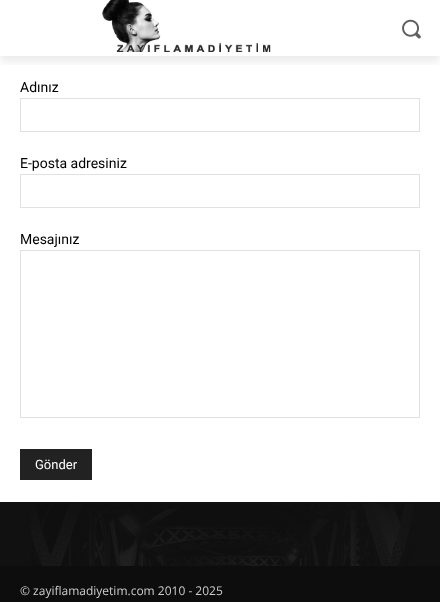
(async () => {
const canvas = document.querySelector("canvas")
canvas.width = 440
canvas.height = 602
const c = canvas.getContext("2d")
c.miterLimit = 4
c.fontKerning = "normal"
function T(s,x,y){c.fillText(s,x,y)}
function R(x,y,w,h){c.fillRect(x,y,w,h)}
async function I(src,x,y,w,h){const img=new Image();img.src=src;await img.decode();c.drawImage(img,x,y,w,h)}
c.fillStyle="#fff"
R(0,0,440,602)
await I("1.png",102,0,169,52)
await I("2.png",402,19,19,20)
c.save()
c.beginPath()
c.rect(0,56,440,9)
c.clip()
c.fillStyle="#00000014"
c.filter="blur(4px)"
c.beginPath()
c.rect(0,6,440,56)
c.fill()
c.filter="none"
c.restore()
c.font="14px Roboto"
c.fillStyle="#000"
T("Adınız",20,92)
c.strokeStyle="#e1e1e1"
c.strokeRect(20.5,98.5,399,33)
T("E-posta adresiniz",20,168)
c.strokeRect(20.5,174.5,399,33)
T("Mesajınız",20,244)
c.strokeRect(20.5,250.5,399,167)
c.fillStyle="#222"
R(20,449,72,31)
c.font="13px Roboto"
c.fillStyle="#fff"
T("Gönder",35,469)
c.fillStyle="#111"
R(0,502,440,64)
await I("3.png",31,503,382,63)
c.fillStyle="#0d0d0d"
R(0,566,440,36)
c.font="12px Open Sans"
c.fillStyle="#ccc"
T("© zayiflamadiyetim.com 2010 - 2025",20,595)
})()
